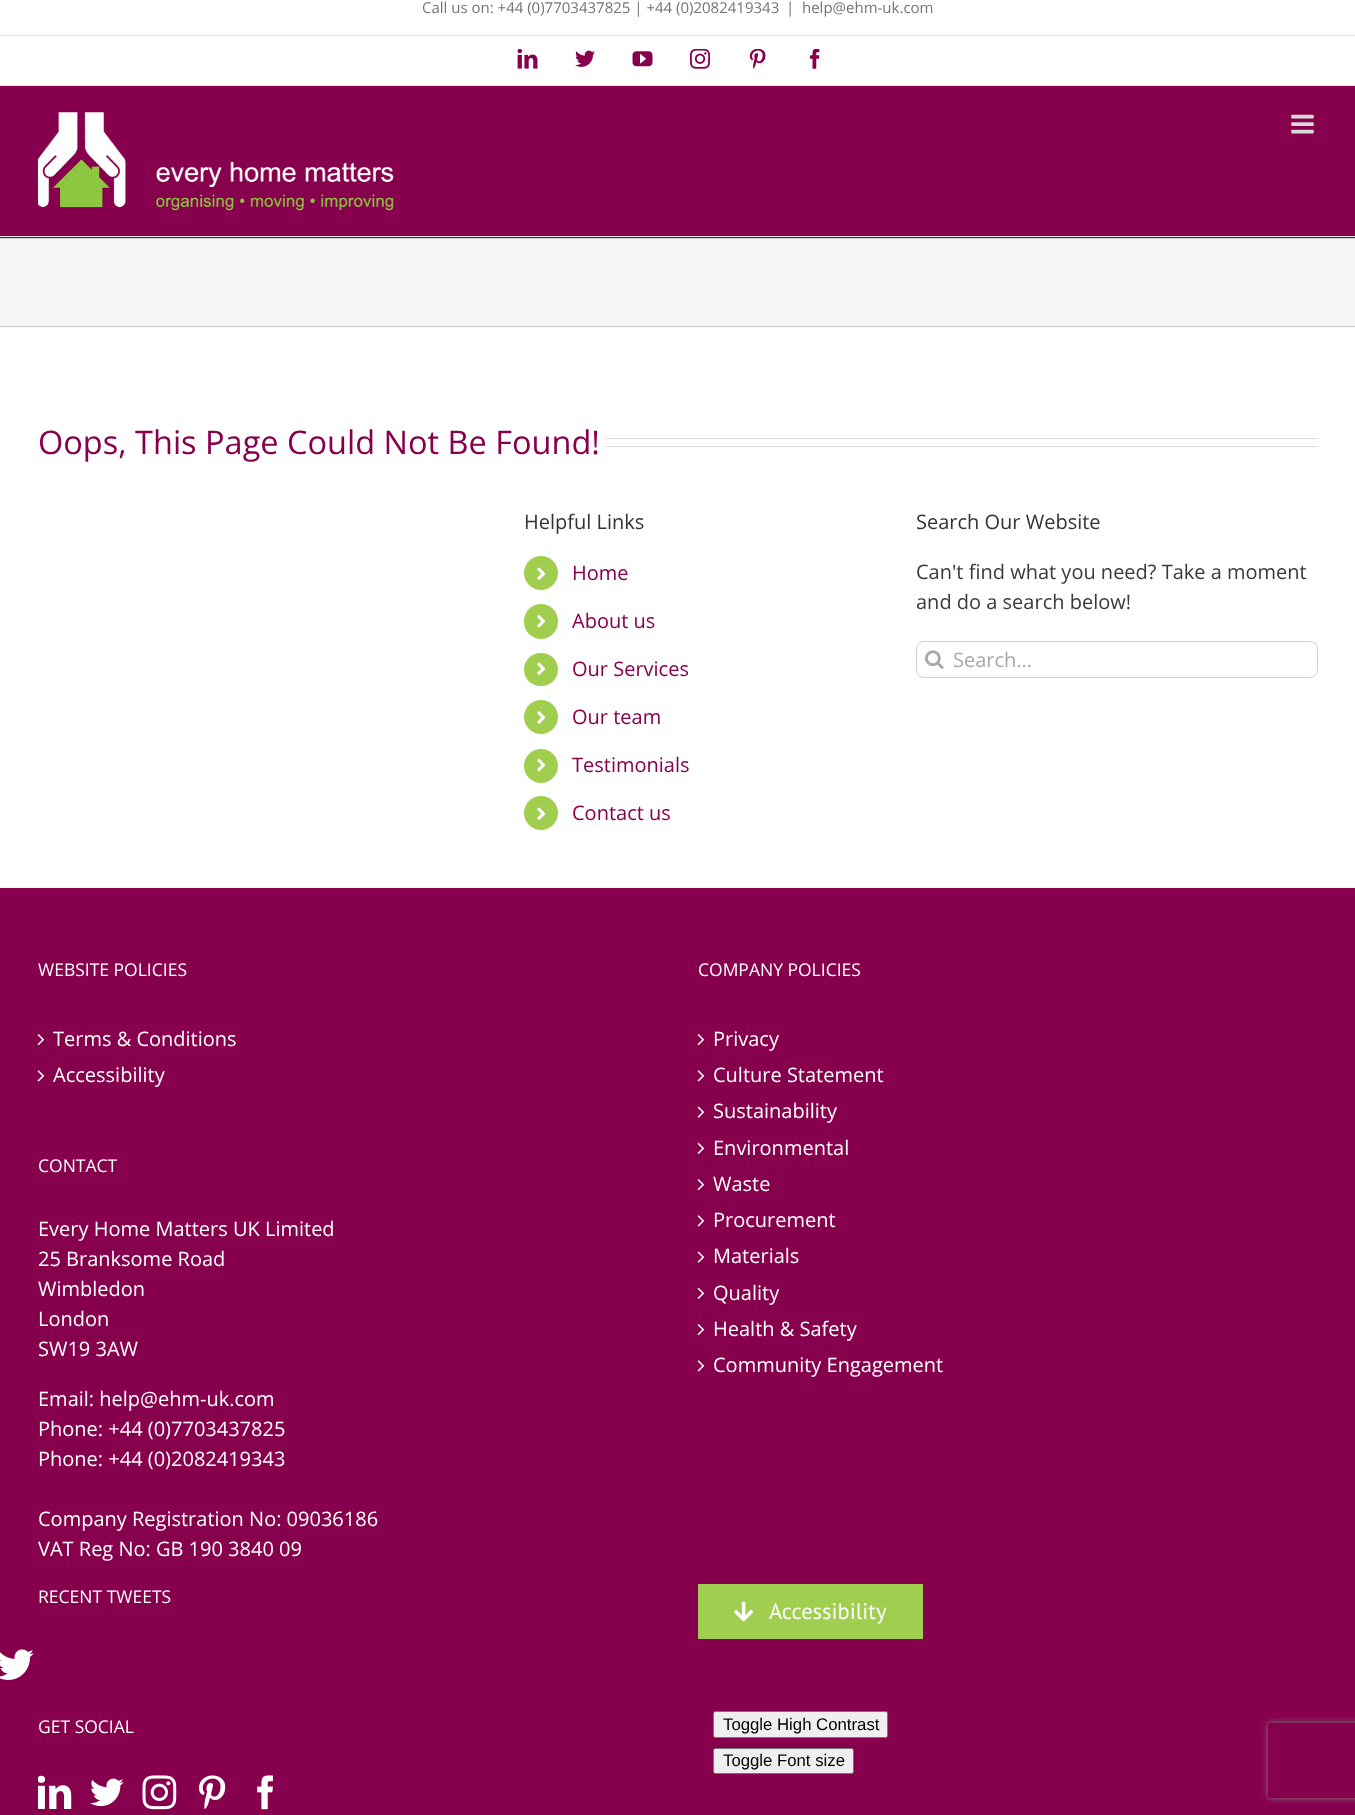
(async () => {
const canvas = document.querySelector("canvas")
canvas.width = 1355
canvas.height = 1815
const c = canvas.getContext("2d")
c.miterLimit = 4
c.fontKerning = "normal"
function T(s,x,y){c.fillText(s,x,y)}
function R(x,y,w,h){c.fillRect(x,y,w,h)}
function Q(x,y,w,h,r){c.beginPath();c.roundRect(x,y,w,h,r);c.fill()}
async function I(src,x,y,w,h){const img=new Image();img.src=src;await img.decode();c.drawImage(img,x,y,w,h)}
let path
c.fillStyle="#fff"
R(0,0,1355,1815)
c.fillStyle="#e5e5e5"
R(0,85,1355,1)
R(0,35,1355,1)
c.font="15px Open Sans"
c.fillStyle="#747474"
T("Call us on: +44 (0)7703437825 | +44 (0)2082419343",422,13)
T("|",786,13)
T("help@ehm-uk.com",802,13)
await I("1.png",517,49,21,20)
await I("2.png",575,50,20,17)
await I("3.png",632,51,21,16)
await I("4.png",690,49,20,20)
await I("5.png",749,49,17,20)
await I("6.png",810,49,10,20)
c.fillStyle="#87004d"
R(0,86,1355,152)
c.fillStyle="#e5e5e5"
R(0,236,1355,1)
await I("7.png",38,112,356,99)
await I("8.png",1291,114,23,20)
c.fillStyle="#f6f6f6"
R(0,239,1355,89)
c.fillStyle="#d2d3d4"
R(0,238,1355,1)
R(0,326,1355,1)
c.font="32.5px Open Sans"
c.fillStyle="#87004d"
T("Oops, This Page Could Not Be Found!",38,454)
c.fillStyle="#e0dede"
R(605,438,713,1)
R(605,446,713,1)
c.font="20px Open Sans"
c.fillStyle="#333"
T("Helpful Links",524,529)
c.fillStyle="#a0ce4e"
c.beginPath()
c.arc(541,573,17,0,7)
c.fill()
await I("9.png",537,567,9,13)
c.fillStyle="#87004d"
T("Home",572,580)
c.fillStyle="#a0ce4e"
Q(524,604,34,35,17)
await I("10.png",537,615,9,13)
c.fillStyle="#87004d"
T("About us",572,628)
c.fillStyle="#a0ce4e"
Q(524,653,34,33,16.5)
await I("9.png",537,662,9,13)
c.fillStyle="#87004d"
T("Our Services",572,676)
c.fillStyle="#a0ce4e"
c.beginPath()
c.arc(541,717,17,0,7)
c.fill()
await I("11.png",537,711,9,13)
c.fillStyle="#87004d"
T("Our team",572,724)
c.fillStyle="#a0ce4e"
c.beginPath()
c.arc(541,766,17,0,7)
c.fill()
await I("12.png",537,758,9,14)
c.fillStyle="#87004d"
T("Testimonials",572,772)
c.fillStyle="#a0ce4e"
c.beginPath()
c.arc(541,813,17,0,7)
c.fill()
await I("9.png",537,807,9,13)
c.fillStyle="#87004d"
T("Contact us",572,820)
c.fillStyle="#333"
T("Search Our Website",916,529)
c.fillStyle="#3a3a3a"
T("Can't find what you need? Take a moment",916,579)
T("and do a search below!",916,609)
c.beginPath()
c.roundRect(916.5,641.5,401,36,7.5)
c.strokeStyle="#d2d2d2"
c.stroke()
await I("13.png",925,650,19,19)
c.fillStyle="#aaa9a9"
T("Search...",953,667)
c.fillStyle="#87004d"
R(0,888,1355,927)
c.font="17.5px Open Sans"
c.fillStyle="#fff"
T("WEBSITE POLICIES",38,976)
await I("14.png",37,1034,8,12)
c.font="20px Open Sans"
T("Terms & Conditions",53,1046)
await I("15.png",37,1070,8,12)
T("Accessibility",53,1082)
c.font="17.5px Open Sans"
T("CONTACT",38,1172)
c.font="20px Open Sans"
T("Every Home Matters UK Limited",38,1236)
T("25 Branksome Road",38,1266)
T("Wimbledon",38,1296)
T("London",38,1326)
T("SW19 3AW",38,1356)
T("Email: help@ehm-uk.com",38,1406)
T("Phone: +44 (0)7703437825",38,1436)
T("Phone: +44 (0)2082419343",38,1466)
T("Company Registration No: 09036186",38,1526)
T("VAT Reg No: GB 190 3840 09",38,1556)
c.font="17.5px Open Sans"
T("COMPANY POLICIES",698,976)
await I("14.png",697,1034,8,12)
c.font="20px Open Sans"
T("Privacy",713,1046)
await I("15.png",697,1070,8,12)
T("Culture Statement",713,1082)
await I("16.png",697,1106,8,12)
T("Sustainability",713,1118)
await I("17.png",697,1142,8,12)
T("Environmental",713,1155)
await I("14.png",697,1179,8,12)
T("Waste",713,1191)
await I("15.png",697,1215,8,12)
T("Procurement",713,1227)
await I("16.png",697,1251,8,12)
T("Materials",713,1263)
await I("17.png",697,1287,8,12)
T("Quality",713,1300)
await I("14.png",697,1324,8,12)
T("Health & Safety",713,1336)
await I("15.png",697,1360,8,12)
T("Community Engagement",713,1372)
c.font="17.5px Open Sans"
T("RECENT TWEETS",38,1603)
await I("18.png",0,1649,34,31)
T("GET SOCIAL",38,1733)
await I("19.png",38,1775,34,34)
await I("20.png",90,1778,34,29)
await I("21.png",142,1775,35,35)
await I("22.png",199,1775,27,35)
await I("23.png",257,1775,16,35)
c.fillStyle="#a0ce4e"
R(698,1584,225,55)
await I("24.png",734,1601,20,21)
c.font="22.5px PT Sans"
c.fillStyle="#fff"
T("Accessibility",769,1619)
c.fillStyle="#efefef"
c.beginPath()
c.roundRect(713.5,1711.5,174,26,2)
c.fill()
c.strokeStyle="#767676"
c.stroke()
c.font="16.75px Liberation Sans"
c.fillStyle="#000"
T("Toggle High Contrast",723,1730)
c.fillStyle="#efefef"
c.beginPath()
c.roundRect(713.5,1748.5,140,25,2)
c.fill()
c.stroke()
c.fillStyle="#000"
T("Toggle Font size",723,1766)
c.save()
path = new Path2D("M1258 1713h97v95h-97zm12.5 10h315c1.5 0 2.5 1 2.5 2.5v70c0 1.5-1 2.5-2.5 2.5h-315c-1.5 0-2.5-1-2.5-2.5v-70c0-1.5 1-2.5 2.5-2.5z")
c.clip(path,"evenodd")
c.fillStyle="#808080"
c.filter="blur(3px)"
c.beginPath()
c.roundRect(1268,1723,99,75,2.5)
c.fill()
c.filter="none"
c.restore()
})()
